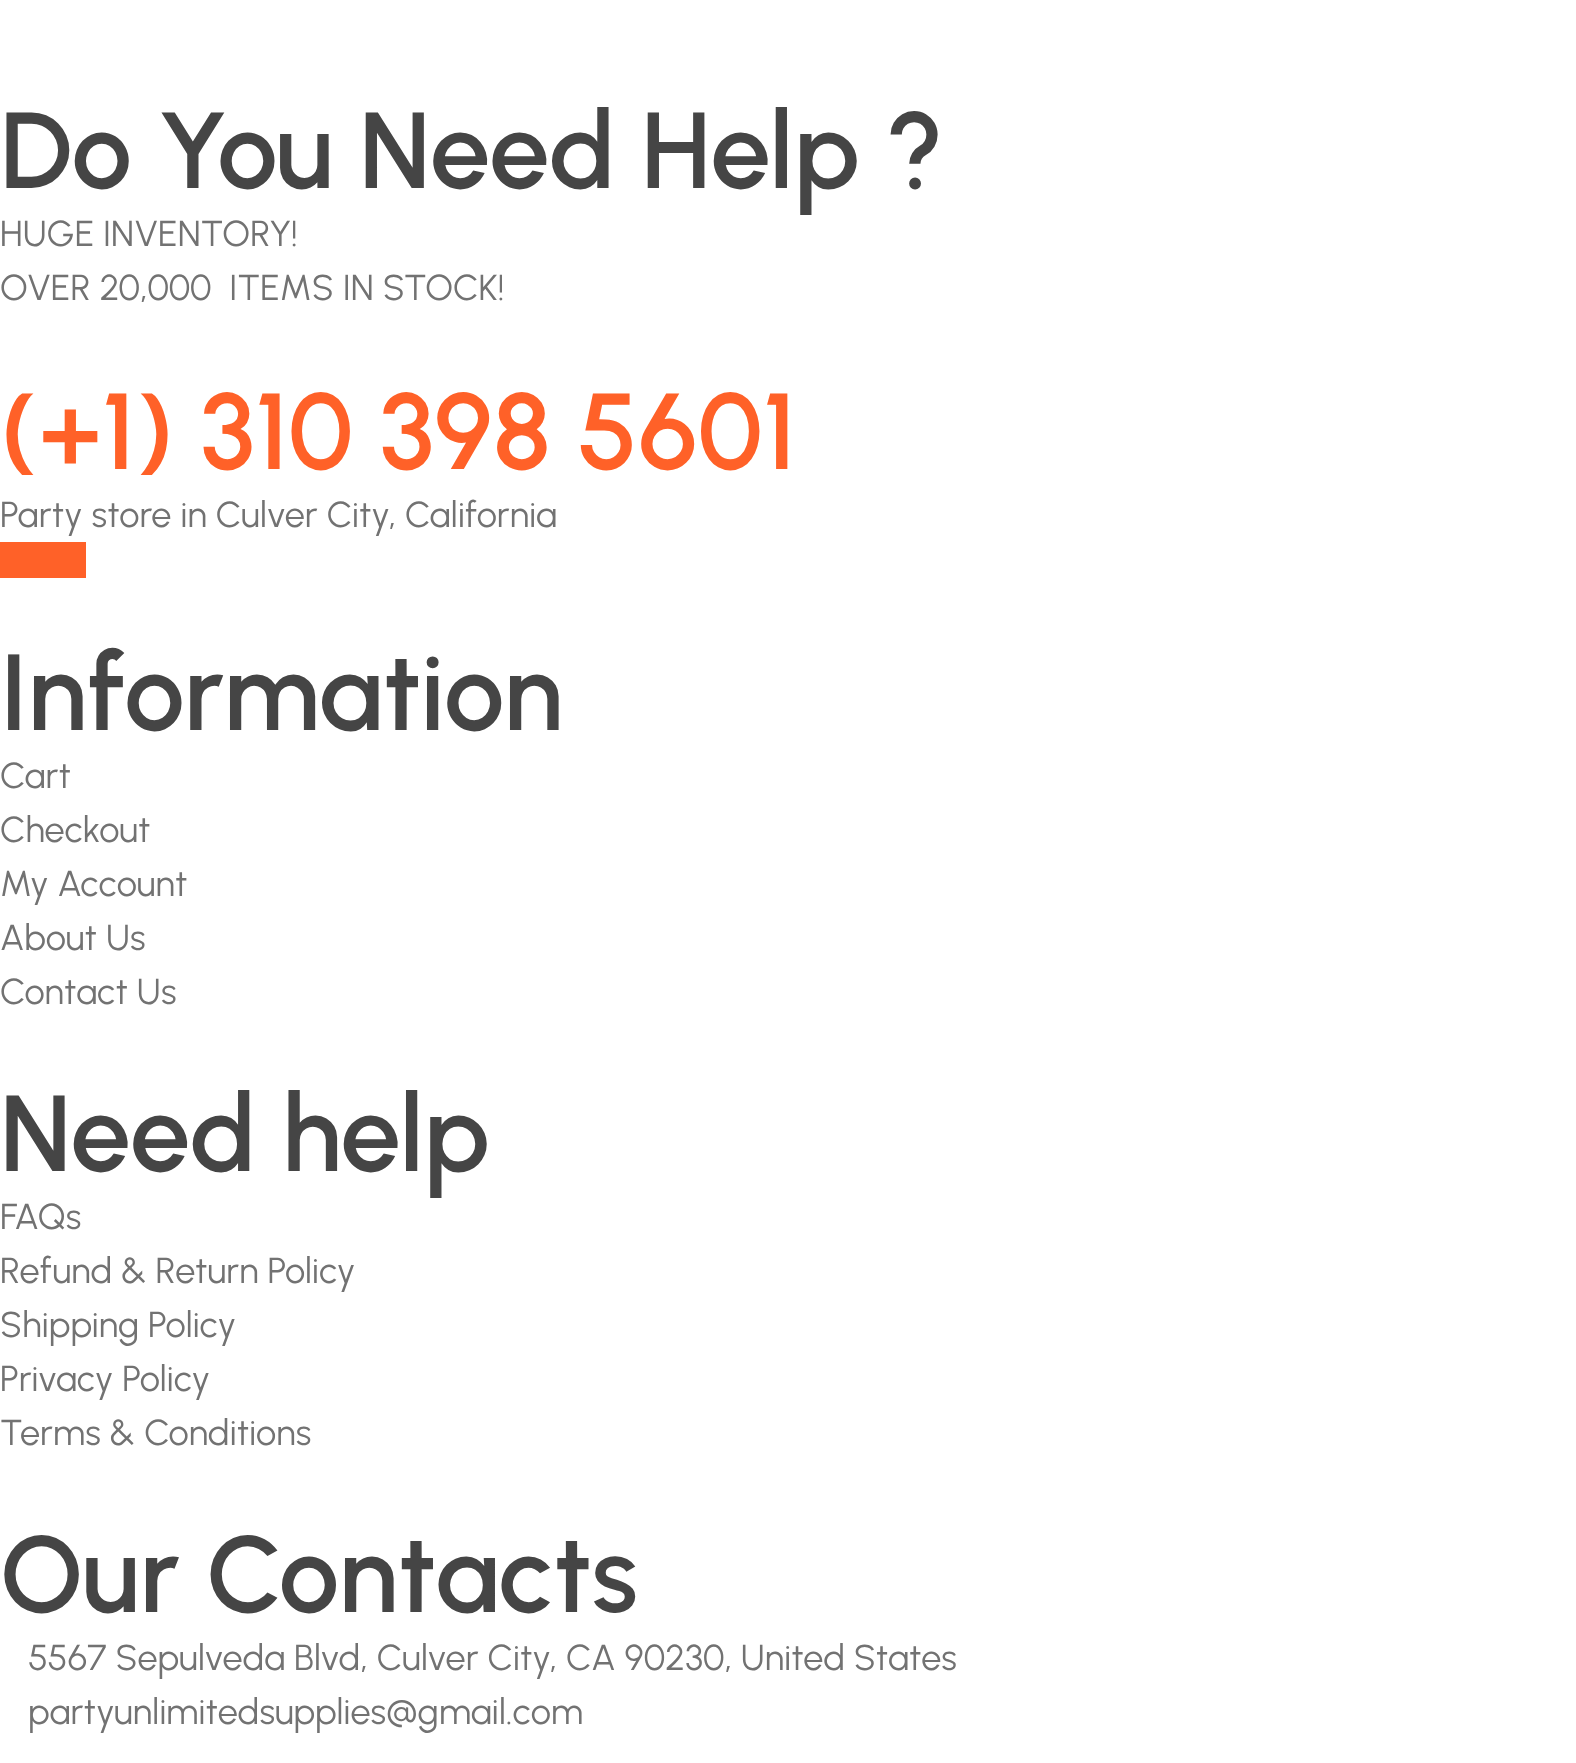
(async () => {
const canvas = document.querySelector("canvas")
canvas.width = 1576
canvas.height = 1763
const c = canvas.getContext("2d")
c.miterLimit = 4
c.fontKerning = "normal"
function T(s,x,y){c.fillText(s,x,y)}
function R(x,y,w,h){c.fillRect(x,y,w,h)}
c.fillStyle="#fff"
R(0,0,1576,1763)
c.letterSpacing="0.18px"
c.font="600 108px Urbanist"
c.fillStyle="#454545"
T("Do You Need Help ?",0,188)
c.font="36px Urbanist"
c.fillStyle="#727272"
T("HUGE INVENTORY!",0,246)
T("OVER 20,000  ITEMS IN STOCK!",0,300)
c.font="600 108px Urbanist"
c.fillStyle="#ff6128"
T("(+1) 310 398 5601",0,469)
c.font="36px Urbanist"
c.fillStyle="#727272"
T("Party store in Culver City, California",0,527)
c.fillStyle="#ff6128"
R(0,542,86,36)
c.font="600 108px Urbanist"
c.fillStyle="#454545"
T("Information",0,730)
c.font="36px Urbanist"
c.fillStyle="#727272"
T("Cart",0,788)
T("Checkout",0,842)
T("My Account",0,896)
T("About Us",0,950)
T("Contact Us",0,1004)
c.font="600 108px Urbanist"
c.fillStyle="#454545"
T("Need help",0,1171)
c.font="36px Urbanist"
c.fillStyle="#727272"
T("FAQs",0,1229)
T("Refund & Return Policy",0,1283)
T("Shipping Policy",0,1337)
T("Privacy Policy",0,1391)
T("Terms & Conditions",0,1445)
c.font="600 108px Urbanist"
c.fillStyle="#454545"
T("Our Contacts",0,1612)
c.font="36px Urbanist"
c.fillStyle="#727272"
T("5567 Sepulveda Blvd, Culver City, CA 90230, United States",28,1670)
T("partyunlimitedsupplies@gmail.com",28,1724)
})()
